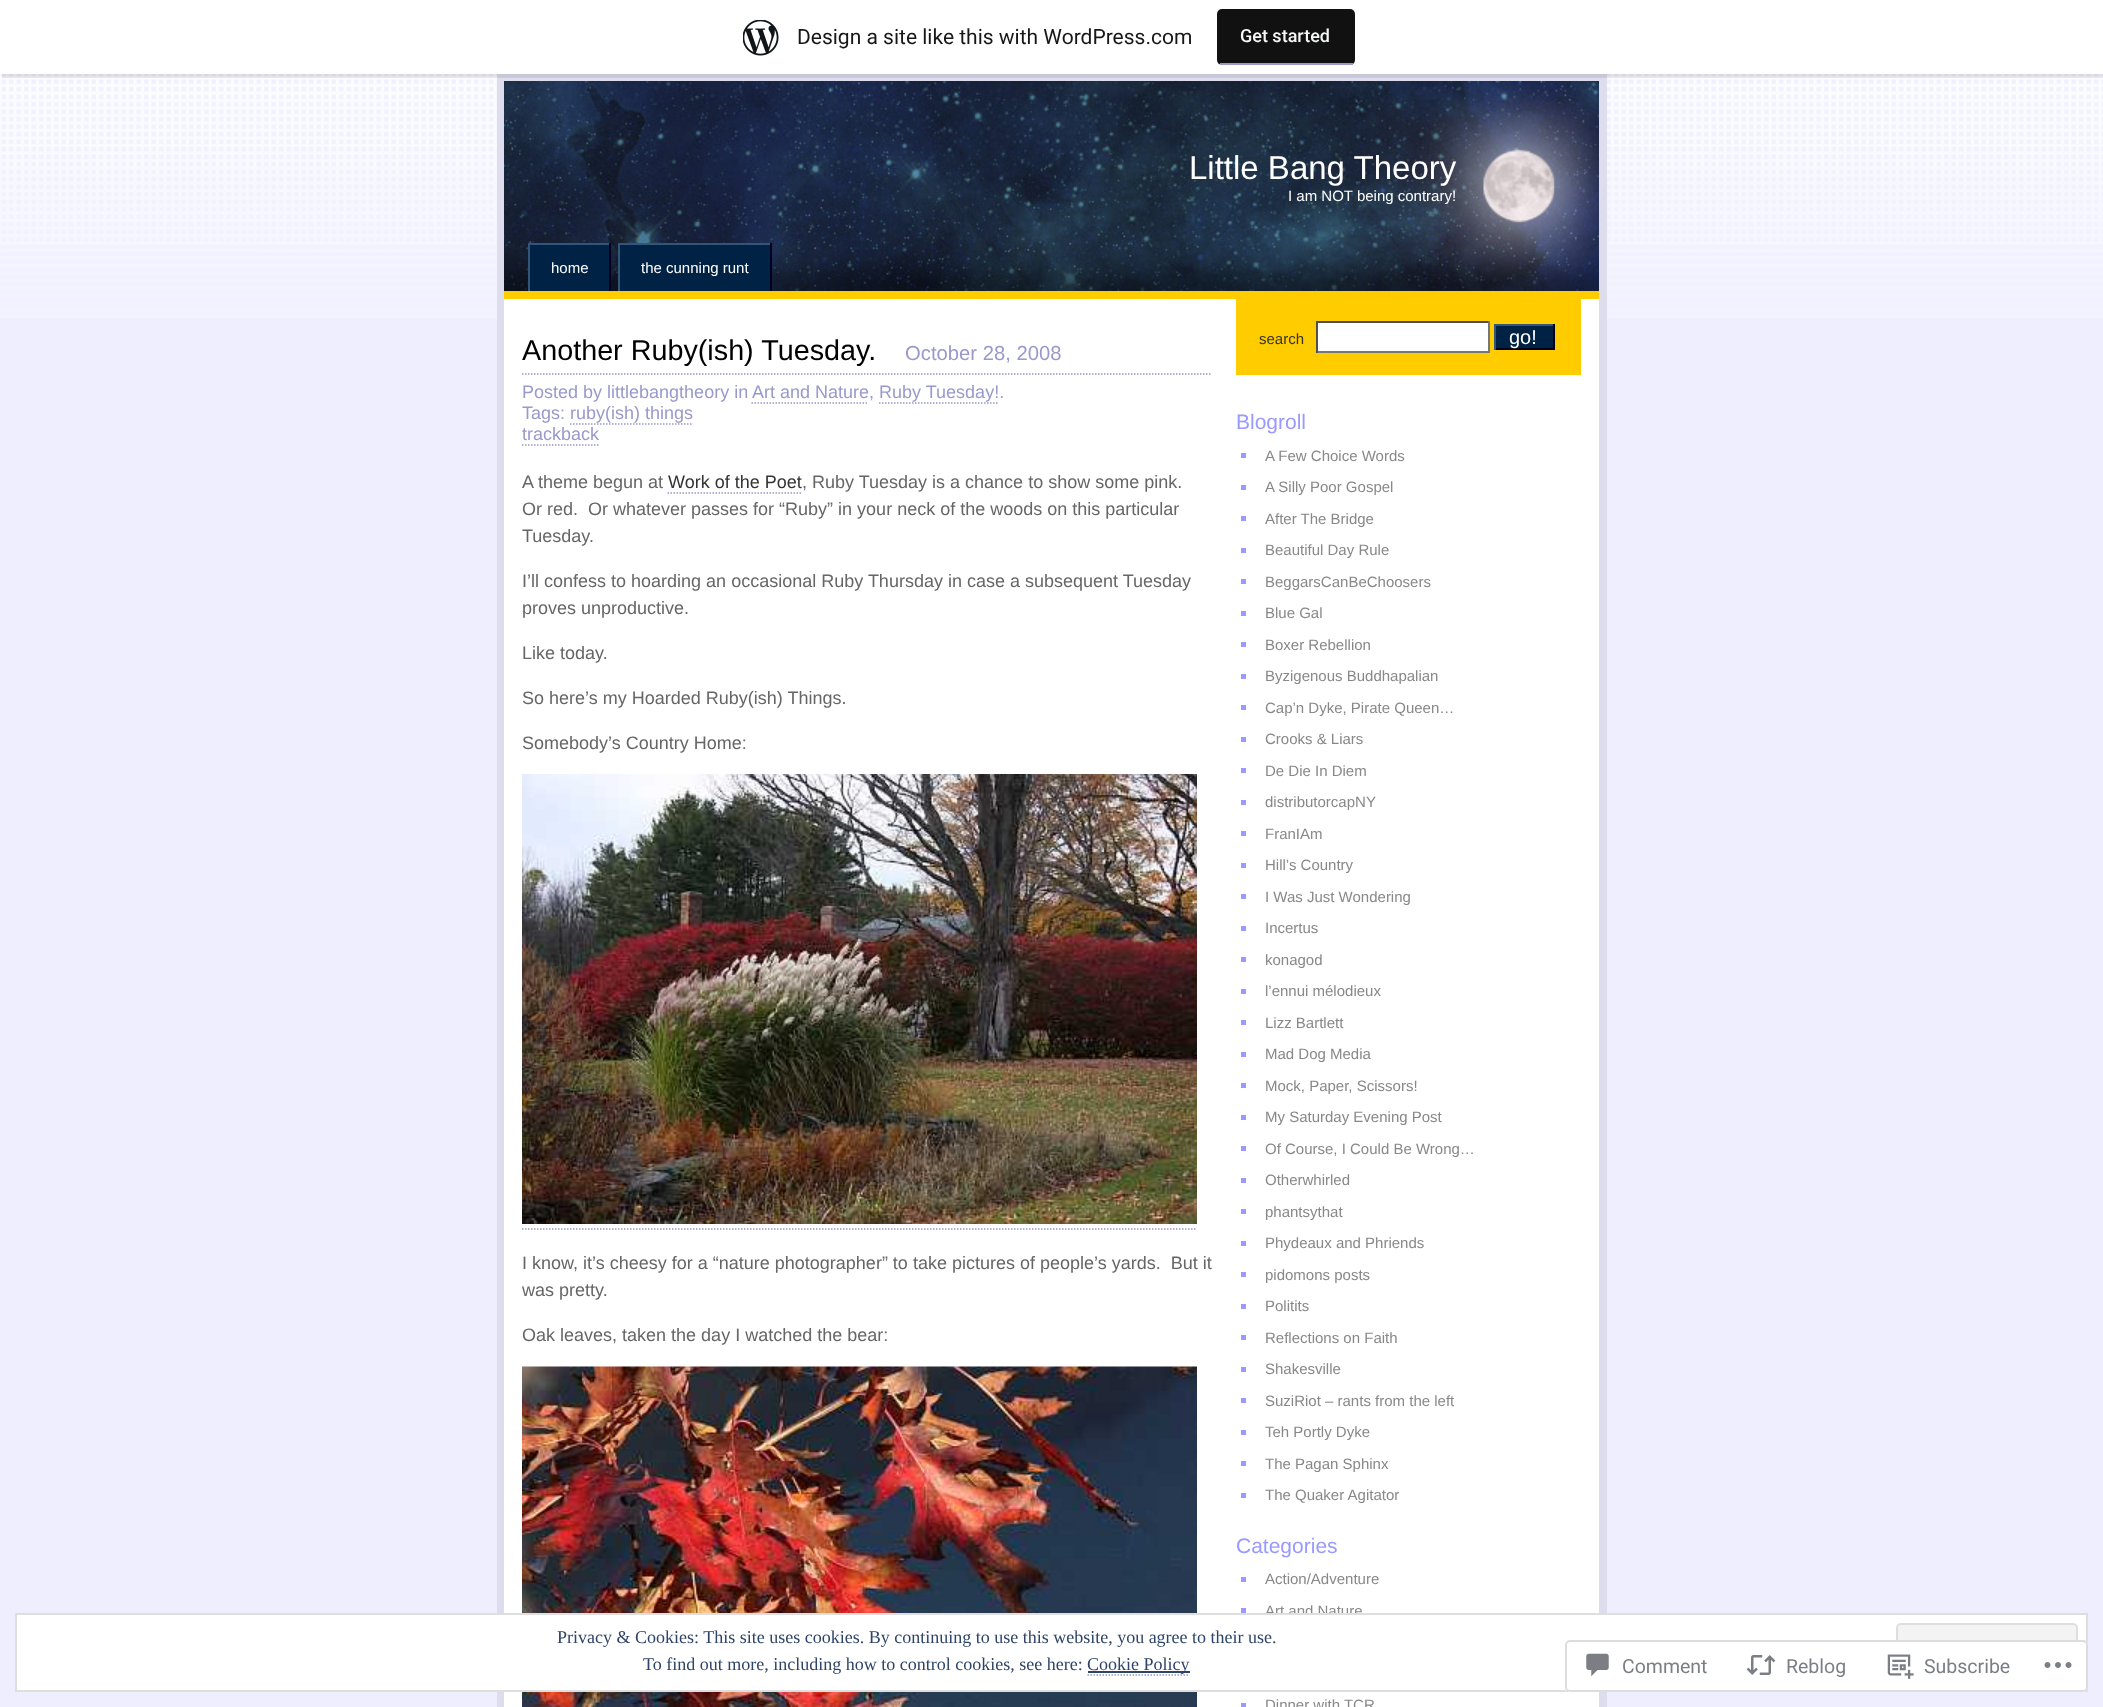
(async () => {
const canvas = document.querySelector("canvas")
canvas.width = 2103
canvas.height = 1707
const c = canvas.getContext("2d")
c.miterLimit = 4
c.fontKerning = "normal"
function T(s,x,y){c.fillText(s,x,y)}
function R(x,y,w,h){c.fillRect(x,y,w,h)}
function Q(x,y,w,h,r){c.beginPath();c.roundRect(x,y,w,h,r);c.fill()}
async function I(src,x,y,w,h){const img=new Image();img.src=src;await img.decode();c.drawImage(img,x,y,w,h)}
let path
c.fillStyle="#eef"
R(0,0,2103,1707)
await I("1.png",0,74,2103,244)
c.fillStyle="#fff"
R(522,299,1077,1408)
c.strokeStyle="#dde"
c.lineWidth=8
c.strokeRect(501,78,1102,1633)
c.fillStyle="#0000000d"
c.filter="blur(1.5px)"
c.beginPath()
c.rect(0,2,2103,73)
c.fill()
c.filter="none"
c.fillStyle="#00000014"
path = new Path2D("M2 74v4h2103v-73h-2v69z")
c.fill(path)
c.fillStyle="#fff"
R(0,0,2103,74)
await I("2.png",743,20,36,36)
c.font="21px Roboto"
c.fillStyle="#171717"
T("Design a site like this with WordPress.com",797,44)
c.fillStyle="#111"
Q(1217,9,138,56,5)
c.fillStyle="#99c"
R(1220,63,133,2)
c.font="500 18px Roboto"
c.fillStyle="#f6f7f7"
T("Get started",1240,42)
await I("3.png",504,81,1095,210)
c.fillStyle="#fc0"
R(504,291,1095,8)
c.font="33px Liberation Sans"
c.fillStyle="#fff"
T("Little Bang Theory",1189,179)
c.font="15px Liberation Sans"
T("I am NOT being contrary!",1288,201)
c.fillStyle="#024"
R(530,245,79,46)
c.fillStyle="#357"
R(528,243,83,2)
c.fillStyle="#002"
R(609,243,2,48)
c.fillStyle="#357"
R(528,243,2,48)
c.fillStyle="#fff"
T("home",551,273)
c.fillStyle="#024"
R(620,245,150,46)
c.fillStyle="#357"
R(618,243,153,2)
c.fillStyle="#002"
R(770,243,2,48)
c.fillStyle="#357"
R(618,243,2,48)
c.fillStyle="#fff"
T("the cunning runt",641,273)
R(504,299,18,1408)
c.font="28.75px Liberation Sans"
c.fillStyle="#000"
T("Another Ruby(ish) Tuesday.",522,360)
c.font="20.25px Liberation Sans"
c.fillStyle="#99c"
T("October 28, 2008",905,360)
path = new Path2D("M522 374h690")
c.strokeStyle="#99c"
c.lineWidth=1.5
c.setLineDash([1.5,1.5])
c.stroke(path)
c.font="18px Liberation Sans"
T("Posted by littlebangtheory in",522,398)
T("Art and Nature, Ruby Tuesday!.",752,398)
path = new Path2D("M751.5 403h117")
c.stroke(path)
path = new Path2D("M879 403h120")
c.stroke(path)
T("Tags: ruby(ish) things",522,419)
path = new Path2D("M570 424h123")
c.stroke(path)
T("trackback",522,440)
path = new Path2D("M522 445h76.5")
c.stroke(path)
c.fillStyle="#666"
T("A theme begun at",522,488)
c.fillStyle="#333"
T("Work of the Poet",668,488)
path = new Path2D("M667.5 493h135")
c.stroke(path)
c.fillStyle="#666"
T(", Ruby Tuesday is a chance to show some pink.",802,488)
T("Or red.  Or whatever passes for “Ruby” in your neck of the woods on this particular",522,515)
T("Tuesday.",522,542)
T("I’ll confess to hoarding an occasional Ruby Thursday in case a subsequent Tuesday",522,587)
T("proves unproductive.",522,614)
T("Like today.",522,659)
T("So here’s my Hoarded Ruby(ish) Things.",522,704)
T("Somebody’s Country Home:",522,749)
await I("4.png",522,774,675,450)
path = new Path2D("M522 1229h675")
c.stroke(path)
T("I know, it’s cheesy for a “nature photographer” to take pictures of people’s yards.  But it",522,1269)
T("was pretty.",522,1296)
T("Oak leaves, taken the day I watched the bear:",522,1341)
await I("5.png",522,1366,675,341)
c.fillStyle="#fc0"
R(1236,299,345,76)
c.font="15px Liberation Sans"
c.fillStyle="#333"
T("search",1259,344)
c.fillStyle="#fff"
R(1318,323,170,28)
c.fillStyle="#4f4f4f"
R(1316,321,174,2)
c.fillStyle="#767676"
R(1488,321,2,32)
R(1316,351,174,2)
c.fillStyle="#4f4f4f"
R(1316,321,2,32)
c.fillStyle="#024"
R(1496,326,57,22)
c.fillStyle="#357"
R(1494,324,60,2)
c.fillStyle="#000017"
R(1553,324,2,26)
R(1494,348,60,2)
c.fillStyle="#357"
R(1494,324,2,26)
c.font="20px Liberation Sans"
c.fillStyle="#fff"
T("go!",1509,344)
c.font="21px Liberation Sans"
c.fillStyle="#99f"
T("Blogroll",1236,429)
R(1241,453,5,5)
c.font="15px Liberation Sans"
c.fillStyle="#888"
T("A Few Choice Words",1265,461)
c.fillStyle="#99f"
R(1241,485,5,5)
c.fillStyle="#888"
T("A Silly Poor Gospel",1265,492)
c.fillStyle="#99f"
R(1241,516,5,5)
c.fillStyle="#888"
T("After The Bridge",1265,524)
c.fillStyle="#99f"
R(1241,548,5,5)
c.fillStyle="#888"
T("Beautiful Day Rule",1265,555)
c.fillStyle="#99f"
R(1241,579,5,5)
c.fillStyle="#888"
T("BeggarsCanBeChoosers",1265,587)
c.fillStyle="#99f"
R(1241,611,5,5)
c.fillStyle="#888"
T("Blue Gal",1265,618)
c.fillStyle="#99f"
R(1241,642,5,5)
c.fillStyle="#888"
T("Boxer Rebellion",1265,650)
c.fillStyle="#99f"
R(1241,674,5,5)
c.fillStyle="#888"
T("Byzigenous Buddhapalian",1265,681)
c.fillStyle="#99f"
R(1241,705,5,5)
c.fillStyle="#888"
T("Cap’n Dyke, Pirate Queen…",1265,713)
c.fillStyle="#99f"
R(1241,737,5,5)
c.fillStyle="#888"
T("Crooks & Liars",1265,744)
c.fillStyle="#99f"
R(1241,768,5,5)
c.fillStyle="#888"
T("De Die In Diem",1265,776)
c.fillStyle="#99f"
R(1241,800,5,5)
c.fillStyle="#888"
T("distributorcapNY",1265,807)
c.fillStyle="#99f"
R(1241,831,5,5)
c.fillStyle="#888"
T("FranIAm",1265,839)
c.fillStyle="#99f"
R(1241,863,5,5)
c.fillStyle="#888"
T("Hill’s Country",1265,870)
c.fillStyle="#99f"
R(1241,894,5,5)
c.fillStyle="#888"
T("I Was Just Wondering",1265,902)
c.fillStyle="#99f"
R(1241,926,5,5)
c.fillStyle="#888"
T("Incertus",1265,933)
c.fillStyle="#99f"
R(1241,957,5,5)
c.fillStyle="#888"
T("konagod",1265,965)
c.fillStyle="#99f"
R(1241,989,5,5)
c.fillStyle="#888"
T("l’ennui mélodieux",1265,996)
c.fillStyle="#99f"
R(1241,1020,5,5)
c.fillStyle="#888"
T("Lizz Bartlett",1265,1028)
c.fillStyle="#99f"
R(1241,1052,5,5)
c.fillStyle="#888"
T("Mad Dog Media",1265,1059)
c.fillStyle="#99f"
R(1241,1083,5,5)
c.fillStyle="#888"
T("Mock, Paper, Scissors!",1265,1091)
c.fillStyle="#99f"
R(1241,1115,5,5)
c.fillStyle="#888"
T("My Saturday Evening Post",1265,1122)
c.fillStyle="#99f"
R(1241,1146,5,5)
c.fillStyle="#888"
T("Of Course, I Could Be Wrong…",1265,1154)
c.fillStyle="#99f"
R(1241,1178,5,5)
c.fillStyle="#888"
T("Otherwhirled",1265,1185)
c.fillStyle="#99f"
R(1241,1209,5,5)
c.fillStyle="#888"
T("phantsythat",1265,1217)
c.fillStyle="#99f"
R(1241,1241,5,5)
c.fillStyle="#888"
T("Phydeaux and Phriends",1265,1248)
c.fillStyle="#99f"
R(1241,1272,5,5)
c.fillStyle="#888"
T("pidomons posts",1265,1280)
c.fillStyle="#99f"
R(1241,1304,5,5)
c.fillStyle="#888"
T("Politits",1265,1311)
c.fillStyle="#99f"
R(1241,1335,5,5)
c.fillStyle="#888"
T("Reflections on Faith",1265,1343)
c.fillStyle="#99f"
R(1241,1367,5,5)
c.fillStyle="#888"
T("Shakesville",1265,1374)
c.fillStyle="#99f"
R(1241,1398,5,5)
c.fillStyle="#888"
T("SuziRiot – rants from the left",1265,1406)
c.fillStyle="#99f"
R(1241,1430,5,5)
c.fillStyle="#888"
T("Teh Portly Dyke",1265,1437)
c.fillStyle="#99f"
R(1241,1461,5,5)
c.fillStyle="#888"
T("The Pagan Sphinx",1265,1469)
c.fillStyle="#99f"
R(1241,1493,5,5)
c.fillStyle="#888"
T("The Quaker Agitator",1265,1500)
c.font="21px Liberation Sans"
c.fillStyle="#99f"
T("Categories",1236,1553)
R(1241,1577,5,5)
c.font="15px Liberation Sans"
c.fillStyle="#888"
T("Action/Adventure",1265,1584)
c.fillStyle="#99f"
R(1241,1608,5,5)
c.fillStyle="#888"
T("Art and Nature",1265,1616)
c.fillStyle="#99f"
R(1241,1703,5,4)
c.fillStyle="#888"
T("Dinner with TCR",1265,1710)
c.fillStyle="#fff"
c.beginPath()
c.rect(16,1614,2071,77)
c.fill()
c.strokeStyle="#dedede"
c.lineWidth=2
c.setLineDash([])
c.stroke()
c.font="18px Liberation Serif"
c.fillStyle="#2e4467"
T("Privacy & Cookies: This site uses cookies. By continuing to use this website, you agree to their use.",557,1643)
c.fillStyle="#f3f3f3"
c.beginPath()
c.roundRect(1897,1624,180,57,4)
c.fill()
c.stroke()
c.fillStyle="#2e4467"
T("To find out more, including how to control cookies, see here:",643,1670)
R(1088,1671,102,2)
T("Cookie Policy",1087,1670)
path = new Path2D("M1087.5 1675h102")
c.strokeStyle="#99c"
c.lineWidth=1.5
c.setLineDash([1.5,1.5])
c.stroke(path)
c.fillStyle="#fffffffa"
Q(1565,1640,523,52,5)
c.beginPath()
c.roundRect(1566,1641,521,50,4)
c.strokeStyle="#dcdcdefa"
c.lineWidth=2
c.setLineDash([])
c.stroke()
await I("6.png",1586,1653,23,24)
c.font="19.5px Roboto"
c.fillStyle="#7b7f85"
T("Comment",1622,1673)
await I("7.png",1746,1655,30,20)
T("Reblog",1786,1673)
await I("8.png",1887,1654,27,25)
T("Subscribe",1924,1673)
await I("9.png",2044,1662,28,6)
})()
